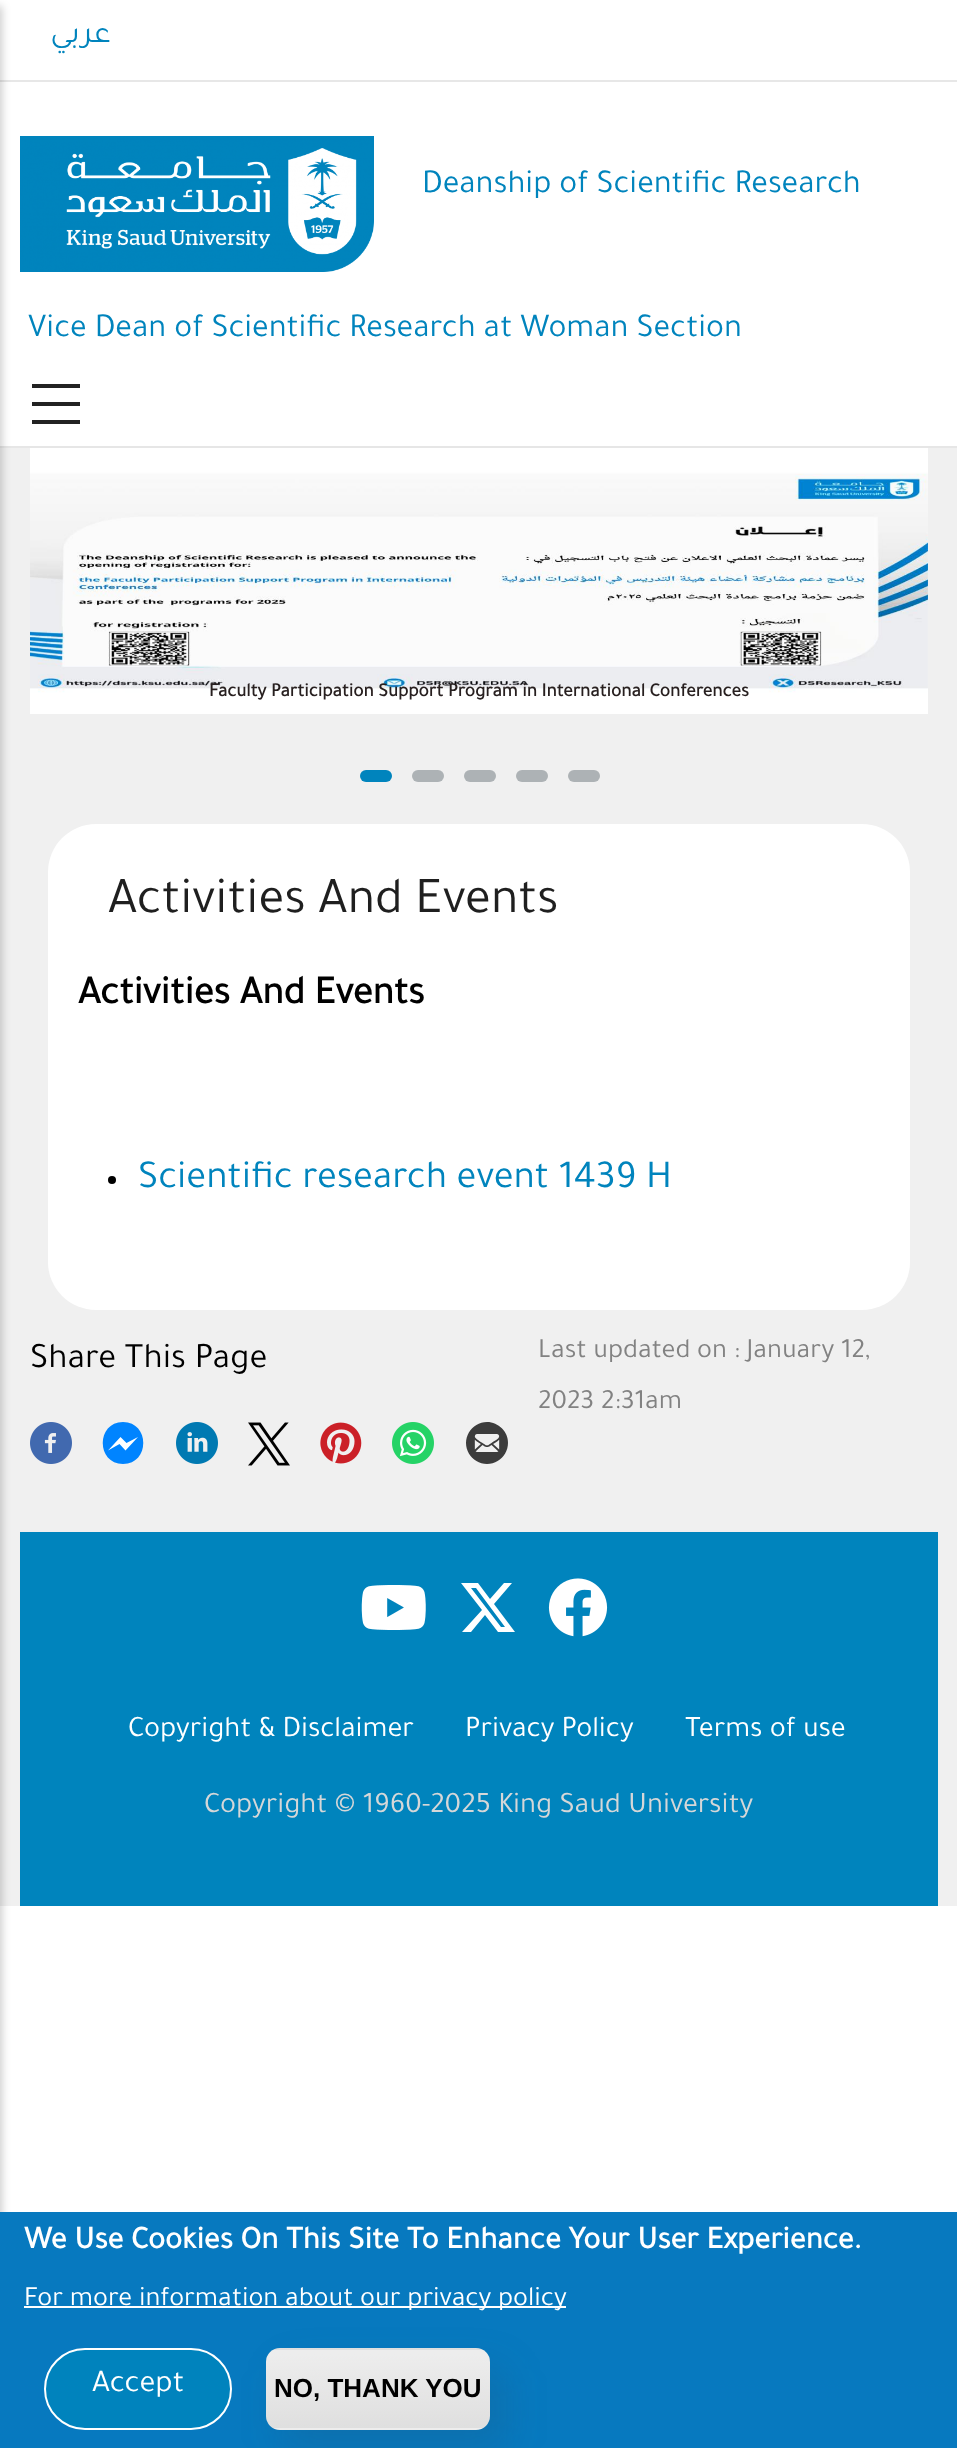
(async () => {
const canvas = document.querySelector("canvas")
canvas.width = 957
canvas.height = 2448
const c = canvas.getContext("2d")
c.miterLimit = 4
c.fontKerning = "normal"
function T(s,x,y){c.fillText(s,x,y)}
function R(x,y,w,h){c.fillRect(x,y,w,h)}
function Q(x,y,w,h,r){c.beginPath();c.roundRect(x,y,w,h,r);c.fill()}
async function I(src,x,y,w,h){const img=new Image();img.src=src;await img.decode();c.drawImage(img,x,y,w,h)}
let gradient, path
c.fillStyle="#fff"
R(0,0,957,2448)
c.fillStyle="#f0f0f0"
R(0,448,957,1458)
c.fillStyle="#e6e6e6"
R(0,446,957,2)
c.fillStyle="#e7e7e7"
R(0,80,957,2)
c.direction="rtl"
c.font="32px Tajawal"
c.fillStyle="#0084bd"
T("عربي",111,42)
c.fillStyle="#00000033"
c.filter="blur(4px)"
c.beginPath()
c.rect(-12,6,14,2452)
c.fill()
c.filter="none"
c.fillStyle="#222"
R(32,384,48,4)
R(32,402,48,4)
R(32,420,48,4)
await I("1.png",20,136,354,136)
c.direction="ltr"
c.font="33.6px Tajawal"
c.fillStyle="#0084bd"
T("Deanship of Scientific Research",422,192)
T("Vice Dean of Scientific Research at Woman Section",28,336)
await I("2.png",30,448,898,266)
c.font="bold 19.15px Tajawal"
c.fillStyle="#271f1f"
T("Faculty Participation Support Program in International Conferences",209,696)
c.fillStyle="#0084bd"
Q(360,770,32,12,6)
c.fillStyle="#adb2b5"
Q(412,770,32,12,6)
Q(464,770,32,12,6)
Q(516,770,32,12,6)
Q(568,770,32,12,6)
c.fillStyle="#fff"
Q(48,824,862,486,48)
c.font="52px Tajawal"
c.fillStyle="#1f1f1f"
T("Activities And Events",108,912)
c.font="bold 40px Tajawal"
c.fillStyle="#000"
T("Activities And Events",78,1003)
c.beginPath()
c.arc(112,1180,4,0,7)
c.fill()
c.font="40px Tajawal"
c.fillStyle="#0084bd"
T("Scientific research event 1439 H",138,1187)
c.font="36px Tajawal"
c.fillStyle="#000"
T("Share This Page",30,1367)
await I("3.png",30,1422,42,42)
c.fillStyle="#0084ff"
path = new Path2D("M123 1422c-27 0-27 42 0 42c27 0 27-42 0-42z")
c.fill(path,"evenodd")
c.fillStyle="#fff"
path = new Path2D("M125.5 1450.5l-6-6.5l-11.5 6.5l12.5-13.5l6 6l11.5-6z")
c.fill(path,"evenodd")
await I("4.png",176,1422,42,42)
await I("5.png",248,1422,42,44)
await I("6.png",320,1422,42,42)
await I("7.png",392,1422,42,42)
await I("8.png",466,1422,42,42)
c.font="28px Tajawal"
c.fillStyle="#828282"
T("Last updated on : January 12,",538,1357)
T("2023 2:31am",538,1408)
c.fillStyle="#0084bd"
R(20,1532,918,374)
await I("9.png",361,1585,65,45)
c.fillStyle="#fff"
path = new Path2D("M504 1583h8l-18 21l21 28h-17l-13-17l-14 17h-9l20-22l-21-27h17l12 16zm-3 44h4l-29-39h-5z")
c.fill(path)
await I("10.png",548,1578,60,59)
c.font="30px Tajawal"
T("Copyright & Disclaimer",128,1736)
T("Privacy Policy",465,1736)
T("Terms of use",685,1736)
c.fillStyle="#d5d7d8"
T("Copyright © 1960-2025 King Saud University",204,1812)
c.fillStyle="#0779bf"
R(0,2212,957,236)
c.font="bold 32px Tajawal"
c.fillStyle="#fff"
T("We Use Cookies On This Site To Enhance Your User Experience.",24,2248)
R(24,2306,542,2)
c.font="28px Tajawal"
T("For more information about our privacy policy",24,2305)
c.fillStyle="#0083bd"
c.beginPath()
c.roundRect(45,2349,186,80,40)
c.fill()
c.strokeStyle="#fff"
c.lineWidth=2
c.stroke()
c.font="32px Tajawal"
c.fillStyle="#fff"
T("Accept",92,2391)
c.fillStyle="#2e3d4926"
c.filter="blur(20px)"
c.beginPath()
c.roundRect(282,2368,224,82,14)
c.fill()
c.filter="none"
c.save()
c.beginPath()
c.roundRect(266,2348,224,82,14)
c.clip()
gradient = c.createLinearGradient(378,2272,378,2350)
gradient.addColorStop(.05,"#ededed")
gradient.addColorStop(1,"#dfdfdf")
c.fillStyle = gradient
R(266,2348,224,2)
gradient = c.createLinearGradient(378,2350,378,2428)
gradient.addColorStop(.05,"#ededed")
gradient.addColorStop(1,"#dfdfdf")
c.fillStyle = gradient
R(266,2350,224,78)
gradient = c.createLinearGradient(378,2428,378,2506)
gradient.addColorStop(.05,"#ededed")
gradient.addColorStop(1,"#dfdfdf")
c.fillStyle = gradient
R(266,2428,224,2)
c.restore()
c.font="bold 26px Liberation Sans"
c.fillStyle="#000"
T("NO, THANK YOU",274,2397)
})()
